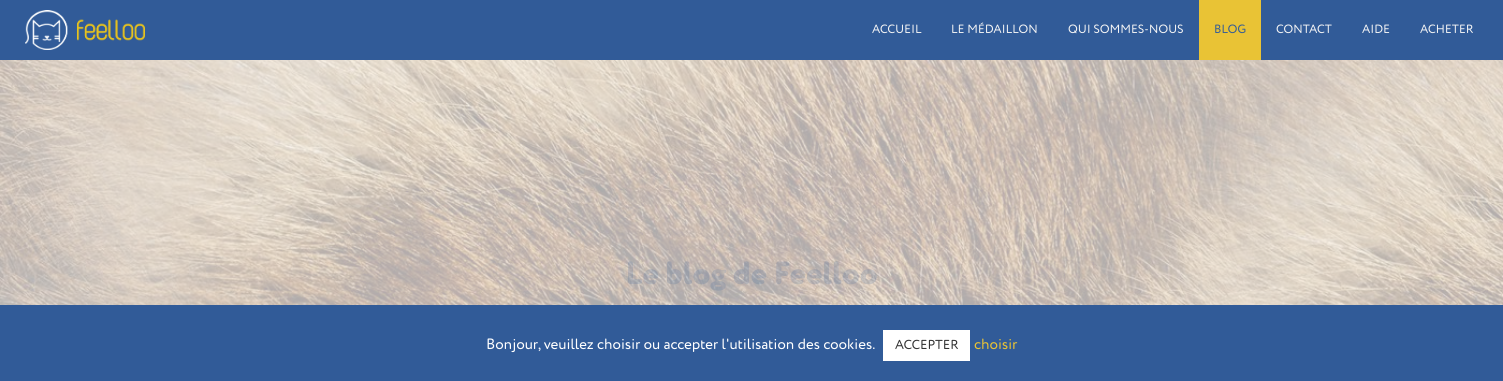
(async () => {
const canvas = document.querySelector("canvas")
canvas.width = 1503
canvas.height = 381
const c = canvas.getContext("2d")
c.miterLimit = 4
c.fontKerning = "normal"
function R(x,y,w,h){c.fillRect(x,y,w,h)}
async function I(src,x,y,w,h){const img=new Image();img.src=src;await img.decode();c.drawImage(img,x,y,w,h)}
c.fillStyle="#f5f5f5"
R(0,0,1503,381)
c.fillStyle="#315b98"
R(0,0,1503,60)
await I("1.png",25,10,120,40)
await I("2.png",872,24,50,10)
await I("3.png",952,22,85,12)
await I("4.png",1068,24,115,10)
c.fillStyle="#e9c335"
R(1199,0,62,60)
await I("5.png",1215,24,31,10)
await I("6.png",1276,24,56,10)
await I("7.png",1362,24,28,9)
await I("8.png",1420,24,53,10)
await I("9.png",0,60,1503,245)
await I("10.png",628,261,249,30)
c.fillStyle="#315b98"
R(0,305,1503,76)
await I("11.png",487,338,388,15)
c.fillStyle="#fff"
R(883,330,87,31)
await I("12.png",895,339,63,11)
await I("13.png",974,338,44,12)
})()
